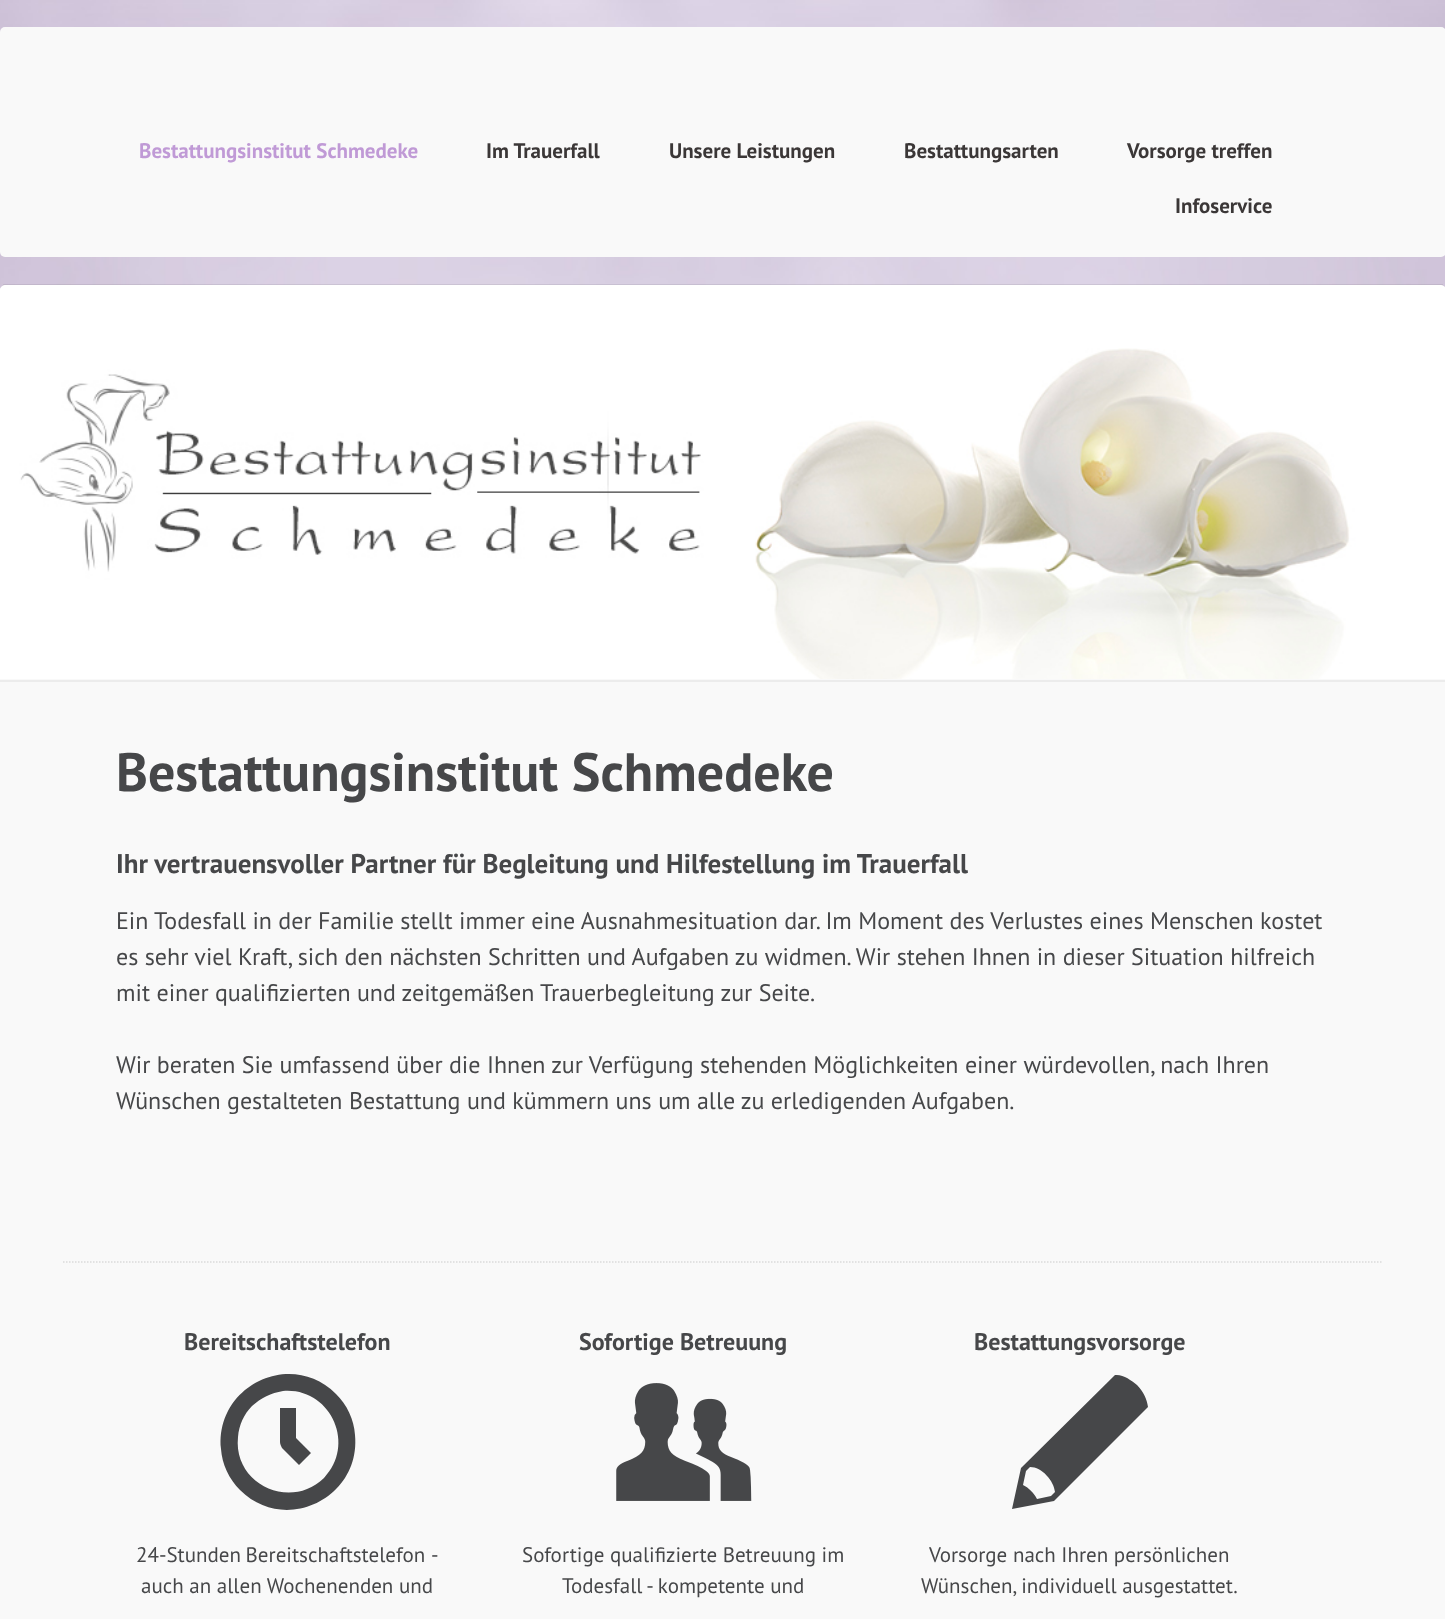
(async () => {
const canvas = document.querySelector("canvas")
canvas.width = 1445
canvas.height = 1619
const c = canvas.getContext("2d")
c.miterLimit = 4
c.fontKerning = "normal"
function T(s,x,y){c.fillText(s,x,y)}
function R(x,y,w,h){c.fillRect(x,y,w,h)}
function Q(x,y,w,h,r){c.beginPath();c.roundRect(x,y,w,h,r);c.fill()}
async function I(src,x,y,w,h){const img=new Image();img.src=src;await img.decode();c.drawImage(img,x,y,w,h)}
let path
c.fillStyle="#fff"
R(0,0,1445,1619)
await I("1.png",0,0,1445,290)
c.fillStyle="#f9f9f9"
Q(0,27,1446,230,5)
c.font="bold 21px PT Sans"
c.fillStyle="#c09ad6"
T("Bestattungsinstitut Schmedeke",139,158)
c.fillStyle="#3b3737"
T("Im Trauerfall",486,158)
T("Unsere Leistungen",669,158)
T("Bestattungsarten",904,158)
T("Vorsorge treffen",1127,158)
T("Infoservice",1175,213)
c.fillStyle="#f9f9f9"
path = new Path2D("M6 285h1434c3 0 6 2 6 5v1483c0 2-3 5-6 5h-1434c-3 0-6-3-6-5v-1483c0-3 3-5 6-5z")
c.fill(path)
c.fillStyle="#00000012"
R(3,284,1440,2)
c.fillStyle="#f9f9f9"
path = new Path2D("M6 285h1434c3.5 0 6 2.5 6 6v390h-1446v-390c0-3.5 2.5-6 6-6z")
c.fill(path)
c.fillStyle="#ececec"
R(0,680,1445,2)
await I("2.png",0,285,1445,394)
c.font="bold 54px PT Sans"
c.fillStyle="#464749"
T("Bestattungsinstitut Schmedeke",116,791)
c.font="bold 27px PT Sans"
T("Ihr vertrauensvoller Partner für Begleitung und Hilfestellung im Trauerfall",116,873)
c.font="24px PT Sans"
T("Ein Todesfall in der Familie stellt immer eine Ausnahmesituation dar. Im Moment des Verlustes eines Menschen kostet",116,929)
T("es sehr viel Kraft, sich den nächsten Schritten und Aufgaben zu widmen. Wir stehen Ihnen in dieser Situation hilfreich",116,965)
T("mit einer qualifizierten und zeitgemäßen Trauerbegleitung zur Seite.",116,1001)
T("Wir beraten Sie umfassend über die Ihnen zur Verfügung stehenden Möglichkeiten einer würdevollen, nach Ihren",116,1073)
T("Wünschen gestalteten Bestattung und kümmern uns um alle zu erledigenden Aufgaben.",116,1109)
path = new Path2D("M63 1262h1320")
c.strokeStyle="#dadada"
c.lineWidth=1.5
c.setLineDash([1.5,1.5])
c.stroke(path)
c.font="bold 24px PT Sans"
T("Bereitschaftstelefon",184,1350)
path = new Path2D("M252 1406c9-8 19-13 31-15c47-4 74 53 41 87c-34 33-91 6-86-41c1-12 6-23 14-31zm84-12c-45-45-121-8-115 55c1 15 8 30 19 41c45 45 121 8 115-55c-1-16-8-30-19-41zm-25 59l-15-15v-30h-16v34c0 2 1 4 2 6l17 17z")
c.fill(path)
c.wordSpacing="-1px"
c.font="21px PT Sans"
T("24-Stunden Bereitschaftstelefon",136,1562)
c.wordSpacing="0px"
T("-",431,1562)
T("auch an allen Wochenenden und",141,1593)
c.font="bold 24px PT Sans"
T("Sofortige Betreuung",579,1350)
await I("3.png",616,1383,136,118)
c.font="21px PT Sans"
T("Sofortige qualifizierte Betreuung im",522,1562)
T("Todesfall - kompetente und",562,1593)
c.font="bold 24px PT Sans"
T("Bestattungsvorsorge",974,1350)
path = new Path2D("M1137 1385c-6-5-14-11-22-10l-94 93l-9 41l42-8l94-94c-1-7-4-15-11-22zm-86 111l-14 3c-3-6-8-11-14-14l3-14l4-4c12 0 24 14 25 25z")
c.fill(path)
c.font="21px PT Sans"
T("Vorsorge nach Ihren persönlichen",929,1562)
T("Wünschen, individuell ausgestattet.",921,1593)
})()
